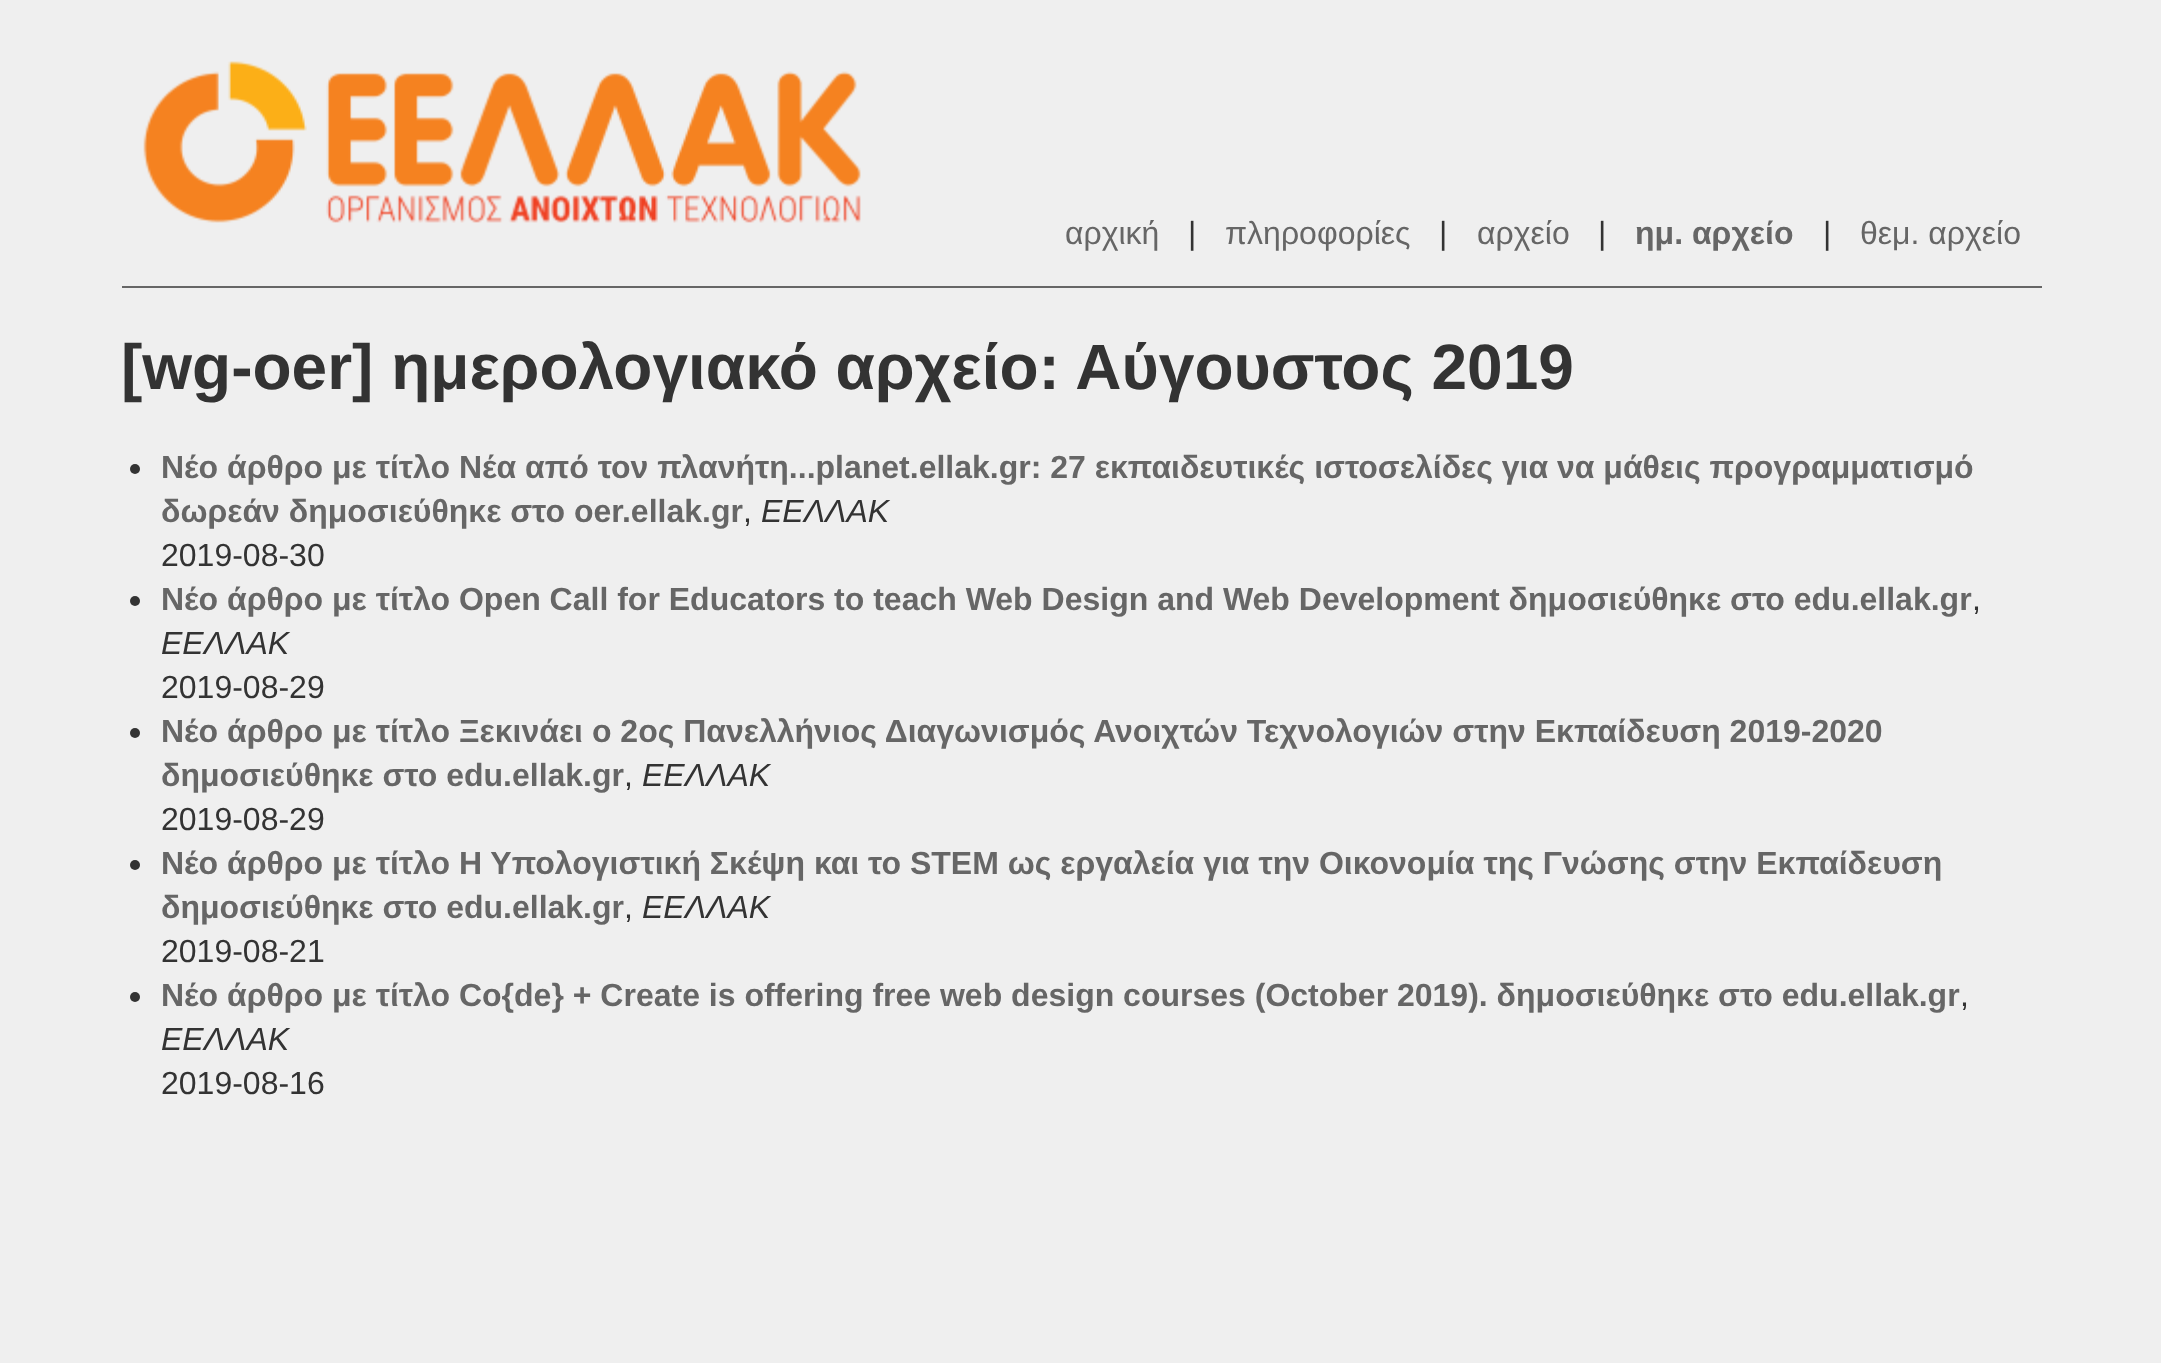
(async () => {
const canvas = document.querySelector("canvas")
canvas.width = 2161
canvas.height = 1363
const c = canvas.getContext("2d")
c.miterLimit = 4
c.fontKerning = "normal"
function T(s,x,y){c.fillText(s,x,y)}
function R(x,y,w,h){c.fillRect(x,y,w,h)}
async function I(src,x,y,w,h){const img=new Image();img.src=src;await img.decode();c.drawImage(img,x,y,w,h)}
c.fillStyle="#efefef"
R(0,0,2161,1363)
c.fillStyle="#666"
R(122,286,1920,2)
await I("1.png",143,61,718,162)
c.font="32px Liberation Sans"
T("αρχική",1065,244)
c.fillStyle="#333"
T("|",1188,244)
c.fillStyle="#666"
T("πληροφορίες",1225,244)
c.fillStyle="#333"
T("|",1439,244)
c.fillStyle="#666"
T("αρχείο",1477,244)
c.fillStyle="#333"
T("|",1598,244)
c.font="bold 32px Liberation Sans"
c.fillStyle="#666"
T("ημ. αρχείο",1635,244)
c.font="32px Liberation Sans"
c.fillStyle="#333"
T("|",1823,244)
c.fillStyle="#666"
T("θεμ. αρχείο",1860,244)
c.font="bold 64px Liberation Sans"
c.fillStyle="#333"
T("[wg-oer] ημερολογιακό αρχείο: Αύγουστος 2019",121,389)
c.beginPath()
c.arc(135,469,5,0,7)
c.fill()
c.font="bold 32px Liberation Sans"
c.fillStyle="#666"
T("Νέο άρθρο με τίτλο Νέα από τον πλανήτη...planet.ellak.gr: 27 εκπαιδευτικές ιστοσελίδες για να μάθεις προγραμματισμό",161,478)
T("δωρεάν δημοσιεύθηκε στο oer.ellak.gr",161,522)
c.font="32px Liberation Sans"
c.fillStyle="#333"
T(",",743,522)
c.font="italic 32px Liberation Sans"
T("ΕΕΛΛΑΚ",761,522)
c.font="32px Liberation Sans"
T("2019-08-30",161,566)
c.beginPath()
c.arc(135,601,5,0,7)
c.fill()
c.font="bold 32px Liberation Sans"
c.fillStyle="#666"
T("Νέο άρθρο με τίτλο Open Call for Educators to teach Web Design and Web Development δημοσιεύθηκε στο edu.ellak.gr",161,610)
c.font="32px Liberation Sans"
c.fillStyle="#333"
T(",",1972,610)
c.font="italic 32px Liberation Sans"
T("ΕΕΛΛΑΚ",161,654)
c.font="32px Liberation Sans"
T("2019-08-29",161,698)
c.beginPath()
c.arc(135,733,5,0,7)
c.fill()
c.font="bold 32px Liberation Sans"
c.fillStyle="#666"
T("Νέο άρθρο με τίτλο Ξεκινάει ο 2ος Πανελλήνιος Διαγωνισμός Ανοιχτών Τεχνολογιών στην Εκπαίδευση 2019-2020",161,742)
T("δημοσιεύθηκε στο edu.ellak.gr",161,786)
c.font="32px Liberation Sans"
c.fillStyle="#333"
T(",",624,786)
c.font="italic 32px Liberation Sans"
T("ΕΕΛΛΑΚ",642,786)
c.font="32px Liberation Sans"
T("2019-08-29",161,830)
c.beginPath()
c.arc(135,865,5,0,7)
c.fill()
c.font="bold 32px Liberation Sans"
c.fillStyle="#666"
T("Νέο άρθρο με τίτλο Η Υπολογιστική Σκέψη και το STEM ως εργαλεία για την Οικονομία της Γνώσης στην Εκπαίδευση",161,874)
T("δημοσιεύθηκε στο edu.ellak.gr",161,918)
c.font="32px Liberation Sans"
c.fillStyle="#333"
T(",",624,918)
c.font="italic 32px Liberation Sans"
T("ΕΕΛΛΑΚ",642,918)
c.font="32px Liberation Sans"
T("2019-08-21",161,962)
c.beginPath()
c.arc(135,997,5,0,7)
c.fill()
c.font="bold 32px Liberation Sans"
c.fillStyle="#666"
T("Νέο άρθρο με τίτλο Co{de} + Create is offering free web design courses (October 2019). δημοσιεύθηκε στο edu.ellak.gr",161,1006)
c.font="32px Liberation Sans"
c.fillStyle="#333"
T(",",1960,1006)
c.font="italic 32px Liberation Sans"
T("ΕΕΛΛΑΚ",161,1050)
c.font="32px Liberation Sans"
T("2019-08-16",161,1094)
})()
